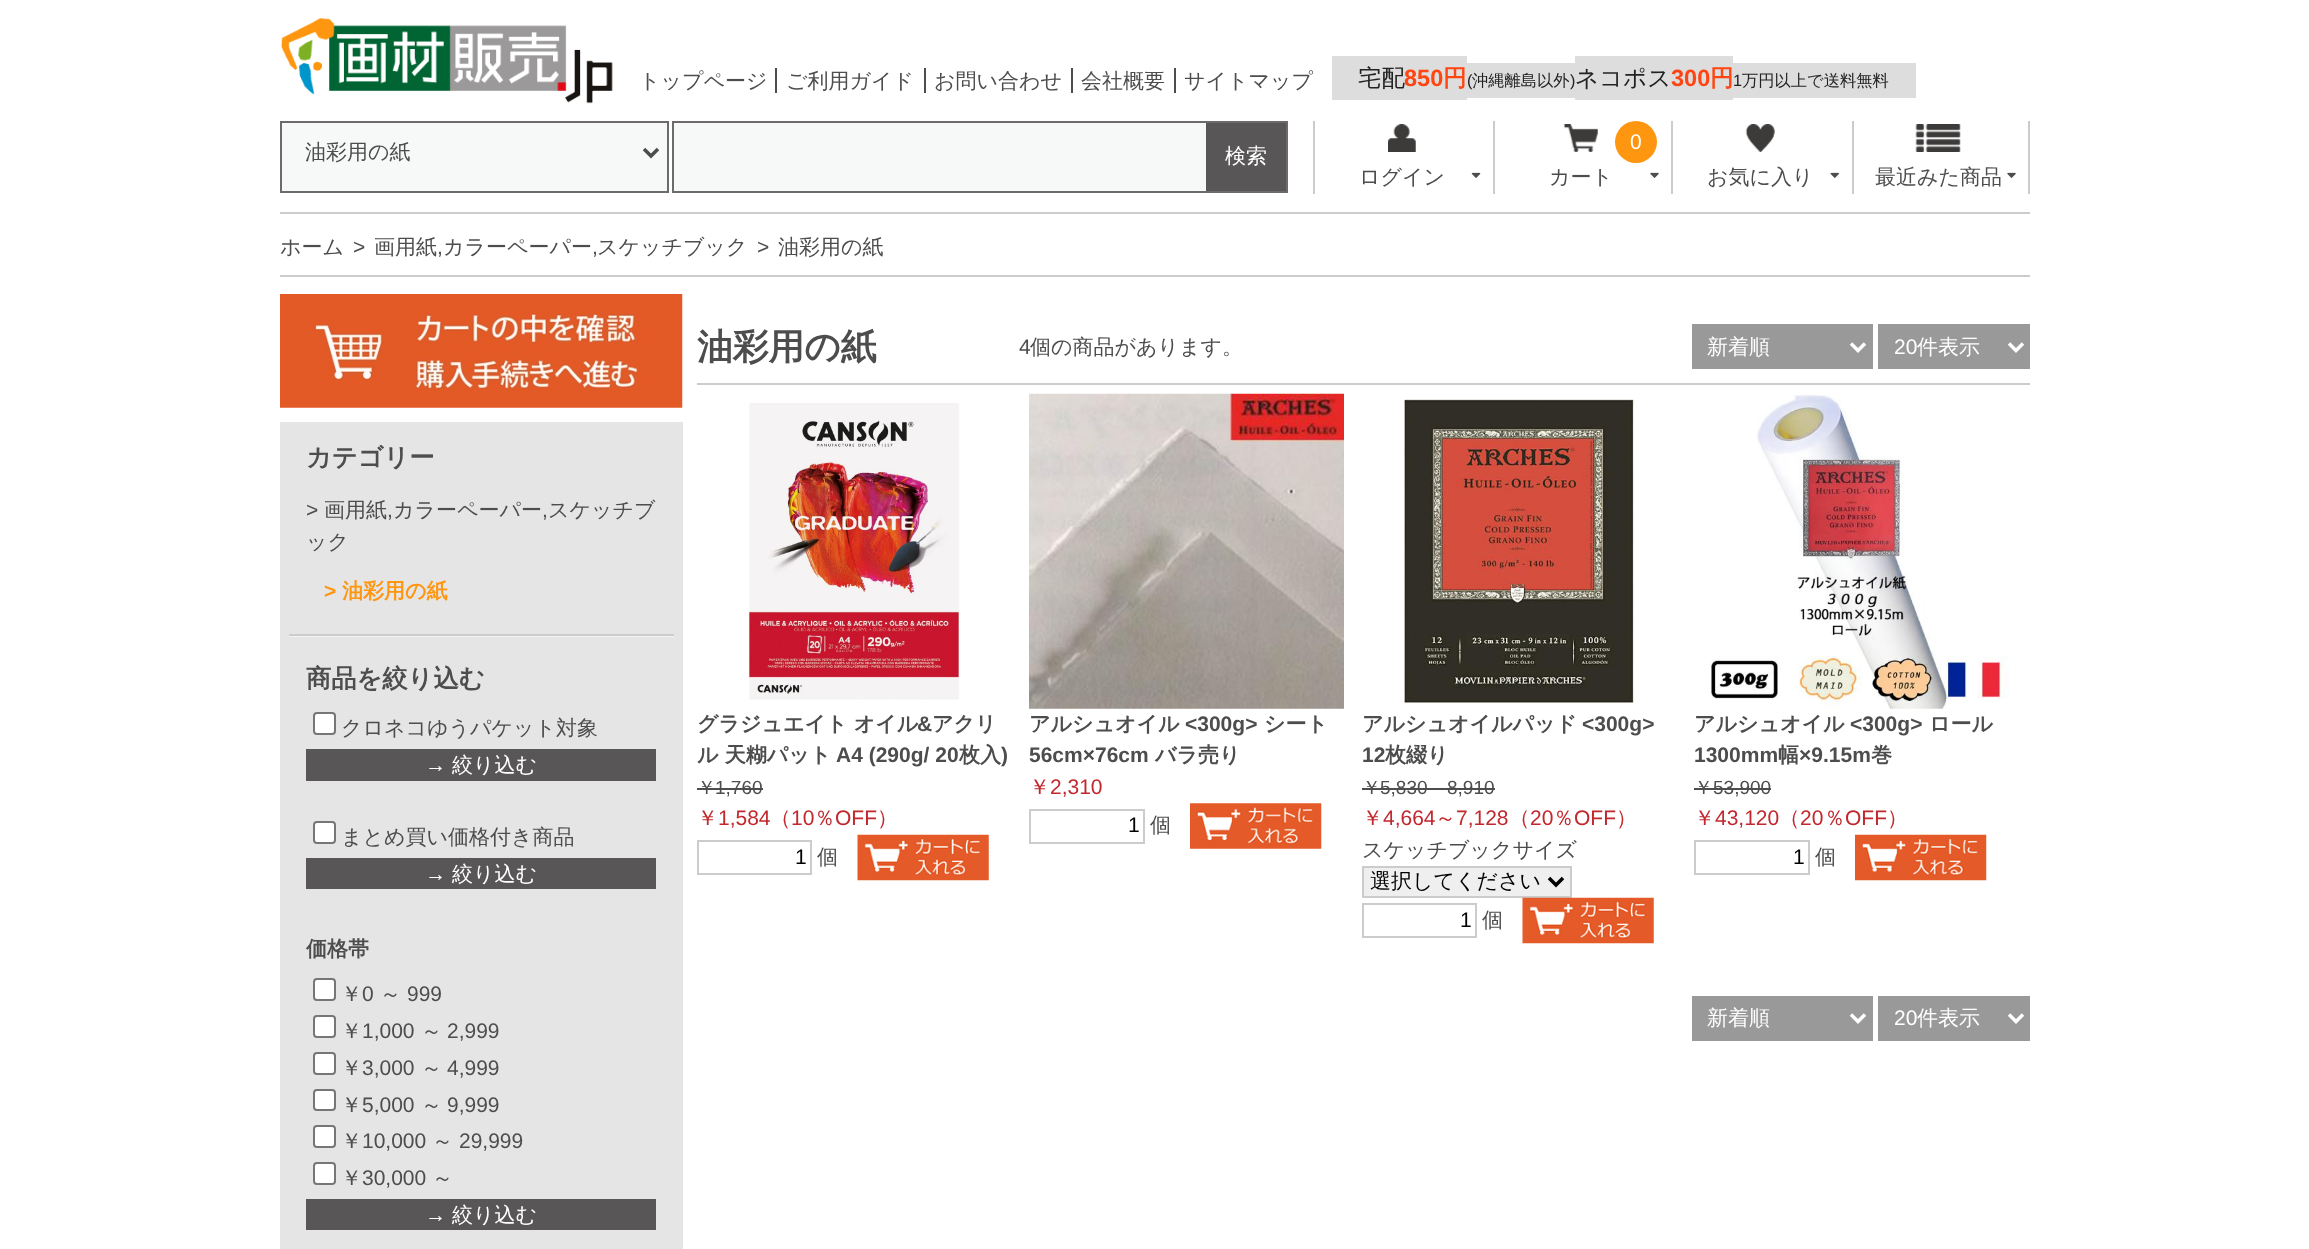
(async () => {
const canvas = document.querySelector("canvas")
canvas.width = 2309
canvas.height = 1249
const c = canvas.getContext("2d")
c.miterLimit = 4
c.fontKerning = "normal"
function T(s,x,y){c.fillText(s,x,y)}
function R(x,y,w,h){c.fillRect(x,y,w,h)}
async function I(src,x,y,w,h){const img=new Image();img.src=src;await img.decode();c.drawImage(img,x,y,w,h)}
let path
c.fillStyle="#fff"
R(0,0,2309,1249)
await I("1.png",281,18,332,86)
c.font="500 21px WenQuanYi Zen Hei"
c.fillStyle="#4d4d4d"
T("トップページ",639,88)
R(775,68,2,25)
T("ご利用ガイド",786,88)
R(924,68,2,25)
T("お問い合わせ",934,88)
R(1071,68,2,25)
T("会社概要",1081,88)
R(1174,68,2,25)
T("サイトマップ",1184,88)
c.fillStyle="#ddd"
R(1332,56,135,44)
c.font="500 23.5px WenQuanYi Zen Hei"
c.fillStyle="#222"
T("宅配",1358,86)
c.font="bold 23.5px Liberation Sans"
c.fillStyle="#ff4511"
T("850",1404,86)
c.font="bold 23.5px WenQuanYi Zen Hei"
T("円",1443,86)
c.fillStyle="#ddd"
R(1467,63,108,35)
c.font="16.25px Liberation Sans"
c.fillStyle="#222"
T("(",1467,86)
c.font="500 16.25px WenQuanYi Zen Hei"
T("沖縄離島以外",1472,86)
c.font="16.25px Liberation Sans"
T(")",1570,86)
c.fillStyle="#ddd"
R(1575,56,158,44)
c.font="500 23.5px WenQuanYi Zen Hei"
c.fillStyle="#222"
T("ネコポス",1575,86)
c.font="bold 23.5px Liberation Sans"
c.fillStyle="#ff4511"
T("300",1671,86)
c.font="bold 23.5px WenQuanYi Zen Hei"
T("円",1710,86)
c.fillStyle="#ddd"
R(1733,63,183,35)
c.font="16.25px Liberation Sans"
c.fillStyle="#222"
T("1",1733,86)
c.font="500 16.25px WenQuanYi Zen Hei"
T("万円以上で送料無料",1742,86)
c.fillStyle="#ccc"
R(280,212,1750,2)
c.fillStyle="#f7f8f8"
c.beginPath()
c.rect(281,122,387,70)
c.fill()
c.strokeStyle="#6c6a6a"
c.lineWidth=2
c.stroke()
path = new Path2D("M644 149l7 7l7-7")
c.strokeStyle="#4d4d4d"
c.lineWidth=3.5
c.stroke(path)
c.font="500 21px WenQuanYi Zen Hei"
c.fillStyle="#4d4d4d"
T("油彩用の紙",305,159)
c.fillStyle="#f7f8f8"
R(674,123,532,68)
c.strokeStyle="#6c6a6a"
c.lineWidth=2
c.strokeRect(673,122,614,70)
c.fillStyle="#585656"
R(1206,123,80,68)
c.fillStyle="#fff"
T("検索",1225,163)
c.fillStyle="#ccc"
R(1313,121,2,73)
await I("2.png",1388,124,28,28)
c.fillStyle="#4d4d4d"
T("ログイン",1359,184)
await I("3.png",1471,172,10,6)
c.fillStyle="#ff960f"
c.beginPath()
c.arc(1636,142,21,0,7)
c.fill()
c.font="21px Liberation Sans"
c.fillStyle="#fff"
T("0",1630,149)
c.fillStyle="#ccc"
R(1493,121,2,73)
await I("4.png",1563,124,35,28)
c.font="500 21px WenQuanYi Zen Hei"
c.fillStyle="#4d4d4d"
T("カート",1549,184)
await I("5.png",1650,172,9,7)
c.fillStyle="#ccc"
R(1671,121,2,73)
await I("6.png",1745,124,30,28)
c.fillStyle="#4d4d4d"
T("お気に入り",1707,184)
await I("7.png",1830,172,9,7)
c.fillStyle="#ccc"
R(2028,121,2,73)
R(1852,121,2,73)
await I("8.png",1915,124,46,28)
c.fillStyle="#4d4d4d"
T("最近みた商品",1875,184)
await I("5.png",2007,172,9,7)
c.fillStyle="#ccc"
R(280,275,1750,2)
c.fillStyle="#4d4d4d"
T("ホーム",280,254)
c.font="21px Liberation Sans"
T(">",353,254)
c.font="500 21px WenQuanYi Zen Hei"
T("画用紙",374,254)
T("カラーペーパー",443,254)
T("スケッチブック",597,254)
c.font="21px Liberation Sans"
T(">",757,254)
c.font="500 21px WenQuanYi Zen Hei"
T("油彩用の紙",778,254)
c.font="21px Liberation Sans"
T(",",437,254)
T(",",592,254)
await I("9.png",280,294,403,114)
c.fillStyle="#e5e5e5"
R(280,422,403,827)
c.font="bold 25.25px WenQuanYi Zen Hei"
c.fillStyle="#4d4d4d"
T("カテゴリー",306,466)
c.font="21px Liberation Sans"
T(">",306,517)
c.font="500 21px WenQuanYi Zen Hei"
T("画用紙",324,517)
T("カラーペーパー",393,517)
T("スケッチブ",548,517)
c.font="21px Liberation Sans"
T(",",387,517)
T(",",542,517)
c.font="500 21px WenQuanYi Zen Hei"
T("ック",306,549)
c.font="bold 21px Liberation Sans"
c.fillStyle="#ff960f"
T(">",324,598)
c.font="bold 21px WenQuanYi Zen Hei"
T("油彩用の紙",342,598)
c.fillStyle="#f2f2f2"
R(289,636,385,1)
c.fillStyle="#ccc"
R(289,634,385,2)
c.font="bold 25.25px WenQuanYi Zen Hei"
c.fillStyle="#4d4d4d"
T("商品を絞り込む",306,687)
c.fillStyle="#fff"
c.beginPath()
c.roundRect(314,713,21,21,3)
c.fill()
c.strokeStyle="#767676"
c.stroke()
c.font="500 21px WenQuanYi Zen Hei"
c.fillStyle="#4d4d4d"
T("クロネコゆうパケット対象",341,735)
c.fillStyle="#585656"
R(306,749,350,32)
c.font="21px Liberation Sans"
c.fillStyle="#fff"
T("→",425,772)
c.font="500 21px WenQuanYi Zen Hei"
T("絞り込む",452,772)
c.beginPath()
c.roundRect(314,822,21,21,3)
c.fill()
c.stroke()
c.fillStyle="#4d4d4d"
T("まとめ買い価格付き商品",341,844)
c.fillStyle="#585656"
R(306,858,350,31)
c.font="21px Liberation Sans"
c.fillStyle="#fff"
T("→",425,881)
c.font="500 21px WenQuanYi Zen Hei"
T("絞り込む",452,881)
c.font="bold 21px WenQuanYi Zen Hei"
c.fillStyle="#4d4d4d"
T("価格帯",306,956)
c.fillStyle="#fff"
c.beginPath()
c.roundRect(314,979,21,21,3)
c.fill()
c.stroke()
c.font="500 21px WenQuanYi Zen Hei"
c.fillStyle="#4d4d4d"
T("￥",341,1001)
c.font="21px Liberation Sans"
T("0",362,1001)
c.font="500 21px WenQuanYi Zen Hei"
T("～",380,1001)
c.font="21px Liberation Sans"
T("999",407,1001)
c.fillStyle="#fff"
c.beginPath()
c.roundRect(314,1016,21,21,3)
c.fill()
c.stroke()
c.font="500 21px WenQuanYi Zen Hei"
c.fillStyle="#4d4d4d"
T("￥",341,1038)
c.font="21px Liberation Sans"
T("1,000",362,1038)
c.font="500 21px WenQuanYi Zen Hei"
T("～",421,1038)
c.font="21px Liberation Sans"
T("2,999",447,1038)
c.fillStyle="#fff"
c.beginPath()
c.roundRect(314,1053,21,21,3)
c.fill()
c.stroke()
c.font="500 21px WenQuanYi Zen Hei"
c.fillStyle="#4d4d4d"
T("￥",341,1075)
c.font="21px Liberation Sans"
T("3,000",362,1075)
c.font="500 21px WenQuanYi Zen Hei"
T("～",421,1075)
c.font="21px Liberation Sans"
T("4,999",447,1075)
c.fillStyle="#fff"
c.beginPath()
c.roundRect(314,1090,21,20,3)
c.fill()
c.stroke()
c.font="500 21px WenQuanYi Zen Hei"
c.fillStyle="#4d4d4d"
T("￥",341,1112)
c.font="21px Liberation Sans"
T("5,000",362,1112)
c.font="500 21px WenQuanYi Zen Hei"
T("～",421,1112)
c.font="21px Liberation Sans"
T("9,999",447,1112)
c.fillStyle="#fff"
c.beginPath()
c.roundRect(314,1126,21,21,3)
c.fill()
c.stroke()
c.font="500 21px WenQuanYi Zen Hei"
c.fillStyle="#4d4d4d"
T("￥",341,1148)
c.font="21px Liberation Sans"
T("10,000",362,1148)
c.font="500 21px WenQuanYi Zen Hei"
T("～",432,1148)
c.font="21px Liberation Sans"
T("29,999",459,1148)
c.fillStyle="#fff"
c.beginPath()
c.roundRect(314,1163,21,21,3)
c.fill()
c.stroke()
c.font="500 21px WenQuanYi Zen Hei"
c.fillStyle="#4d4d4d"
T("￥",341,1185)
c.font="21px Liberation Sans"
T("30,000",362,1185)
c.font="500 21px WenQuanYi Zen Hei"
T("～",432,1185)
c.fillStyle="#585656"
R(306,1199,350,31)
c.font="21px Liberation Sans"
c.fillStyle="#fff"
T("→",425,1222)
c.font="500 21px WenQuanYi Zen Hei"
T("絞り込む",452,1222)
c.fillStyle="#ccc"
R(697,383,1333,2)
c.font="bold 35.75px WenQuanYi Zen Hei"
c.fillStyle="#4d4d4d"
T("油彩用の紙",697,359)
c.font="21px Liberation Sans"
T("4",1019,354)
c.font="500 21px WenQuanYi Zen Hei"
T("個の商品があります。",1030,354)
c.fillStyle="#999"
R(1692,324,181,45)
path = new Path2D("M1851 343.5l7 7l7-7")
c.strokeStyle="#fff"
c.lineWidth=3.5
c.stroke(path)
c.fillStyle="#fff"
T("新着順",1707,354)
c.fillStyle="#999"
R(1878,324,152,45)
path = new Path2D("M2009 343.5l7 7l7-7")
c.stroke(path)
c.font="21px Liberation Sans"
c.fillStyle="#fff"
T("20",1894,354)
c.font="500 21px WenQuanYi Zen Hei"
T("件表示",1917,354)
await I("10.png",748,403,212,297)
c.font="bold 21px WenQuanYi Zen Hei"
c.fillStyle="#4d4d4d"
T("グラジュエイト オイル",697,731)
c.font="bold 21px Liberation Sans"
T("&",917,731)
c.font="bold 21px WenQuanYi Zen Hei"
T("アクリ",932,731)
T("ル 天糊パット",697,762)
c.font="bold 21px Liberation Sans"
T("A4 (290g/ 20",836,762)
c.font="bold 21px WenQuanYi Zen Hei"
T("枚入",959,762)
c.font="bold 21px Liberation Sans"
T(")",1001,762)
c.font="500 19px WenQuanYi Zen Hei"
T("￥",697,794)
R(697,788,19,2)
c.font="19px Liberation Sans"
T("1,760",715,794)
R(716,788,47,2)
c.font="500 21px WenQuanYi Zen Hei"
c.fillStyle="#c1272c"
T("￥",697,825)
c.font="21px Liberation Sans"
T("1,584",718,825)
c.font="500 21px WenQuanYi Zen Hei"
T("（",770,825)
c.font="21px Liberation Sans"
T("10",791,825)
c.font="500 21px WenQuanYi Zen Hei"
T("％",814,825)
c.font="21px Liberation Sans"
T("OFF",835,825)
c.font="500 21px WenQuanYi Zen Hei"
T("）",877,825)
c.strokeStyle="#ccc"
c.lineWidth=2
c.strokeRect(698,841,113,33)
c.font="21px Liberation Sans"
c.fillStyle="#000"
T("1",795,864)
c.font="500 21px WenQuanYi Zen Hei"
c.fillStyle="#4d4d4d"
T("個",817,864)
await I("11.png",857,834,132,47)
await I("12.png",1029,393,315,316)
c.font="bold 21px WenQuanYi Zen Hei"
T("アルシュオイル",1029,731)
c.font="bold 21px Liberation Sans"
T("<300g>",1185,731)
c.font="bold 21px WenQuanYi Zen Hei"
T("シート",1264,731)
c.font="bold 21px Liberation Sans"
T("56cm×76cm",1029,762)
c.font="bold 21px WenQuanYi Zen Hei"
T("バラ売り",1155,762)
c.font="500 21px WenQuanYi Zen Hei"
c.fillStyle="#c1272c"
T("￥",1029,794)
c.font="21px Liberation Sans"
T("2,310",1050,794)
c.strokeRect(1030,810,114,33)
c.fillStyle="#000"
T("1",1128,832)
c.font="500 21px WenQuanYi Zen Hei"
c.fillStyle="#4d4d4d"
T("個",1150,832)
await I("13.png",1190,803,132,46)
await I("14.png",1403,399,232,305)
c.font="bold 21px WenQuanYi Zen Hei"
T("アルシュオイルパッド",1362,731)
c.font="bold 21px Liberation Sans"
T("<300g>",1582,731)
T("12",1362,762)
c.font="bold 21px WenQuanYi Zen Hei"
T("枚綴り",1385,762)
c.font="500 19px WenQuanYi Zen Hei"
T("￥",1362,794)
R(1362,788,19,2)
c.font="19px Liberation Sans"
T("5,830",1380,794)
R(1381,788,114,2)
T("8,910",1447,794)
c.font="500 21px WenQuanYi Zen Hei"
c.fillStyle="#c1272c"
T("￥",1362,825)
c.font="21px Liberation Sans"
T("4,664",1383,825)
c.font="500 21px WenQuanYi Zen Hei"
T("～",1435,825)
c.font="21px Liberation Sans"
T("7,128",1456,825)
c.font="500 21px WenQuanYi Zen Hei"
T("（",1509,825)
c.font="21px Liberation Sans"
T("20",1530,825)
c.font="500 21px WenQuanYi Zen Hei"
T("％",1553,825)
c.font="21px Liberation Sans"
T("OFF",1574,825)
c.font="500 21px WenQuanYi Zen Hei"
T("）",1616,825)
c.fillStyle="#4d4d4d"
T("スケッチブックサイズ",1362,857)
c.fillStyle="#efefef"
c.beginPath()
c.rect(1363,867,208,30)
c.fill()
c.stroke()
path = new Path2D("M1549 878l7 7l7-7")
c.strokeStyle="#000"
c.lineWidth=3.5
c.stroke(path)
c.fillStyle="#000"
T("選択してください",1370,888)
c.strokeStyle="#ccc"
c.lineWidth=2
c.strokeRect(1363,904,113,33)
c.font="21px Liberation Sans"
T("1",1460,927)
c.font="500 21px WenQuanYi Zen Hei"
c.fillStyle="#4d4d4d"
T("個",1482,927)
await I("15.png",1522,897,132,47)
await I("16.png",1710,394,299,315)
c.font="bold 21px WenQuanYi Zen Hei"
T("アルシュオイル",1694,731)
c.font="bold 21px Liberation Sans"
T("<300g>",1850,731)
c.font="bold 21px WenQuanYi Zen Hei"
T("ロール",1929,731)
c.font="bold 21px Liberation Sans"
T("1300mm",1694,762)
c.font="bold 21px WenQuanYi Zen Hei"
T("幅",1778,762)
c.font="bold 21px Liberation Sans"
T("×9.15m",1799,762)
c.font="bold 21px WenQuanYi Zen Hei"
T("巻",1871,762)
c.font="500 19px WenQuanYi Zen Hei"
T("￥",1694,794)
R(1694,788,19,2)
c.font="19px Liberation Sans"
T("53,900",1713,794)
R(1713,788,58,2)
c.font="500 21px WenQuanYi Zen Hei"
c.fillStyle="#c1272c"
T("￥",1694,825)
c.font="21px Liberation Sans"
T("43,120",1715,825)
c.font="500 21px WenQuanYi Zen Hei"
T("（",1779,825)
c.font="21px Liberation Sans"
T("20",1800,825)
c.font="500 21px WenQuanYi Zen Hei"
T("％",1824,825)
c.font="21px Liberation Sans"
T("OFF",1845,825)
c.font="500 21px WenQuanYi Zen Hei"
T("）",1887,825)
c.strokeRect(1695,841,114,33)
c.font="21px Liberation Sans"
c.fillStyle="#000"
T("1",1793,864)
c.font="500 21px WenQuanYi Zen Hei"
c.fillStyle="#4d4d4d"
T("個",1815,864)
await I("17.png",1855,834,132,47)
c.fillStyle="#999"
R(1692,996,181,45)
path = new Path2D("M1851 1014.5l7 7l7-7")
c.strokeStyle="#fff"
c.lineWidth=3.5
c.stroke(path)
c.fillStyle="#fff"
T("新着順",1707,1025)
c.fillStyle="#999"
R(1878,996,152,45)
path = new Path2D("M2009 1014.5l7 7l7-7")
c.stroke(path)
c.font="21px Liberation Sans"
c.fillStyle="#fff"
T("20",1894,1025)
c.font="500 21px WenQuanYi Zen Hei"
T("件表示",1917,1025)
})()
